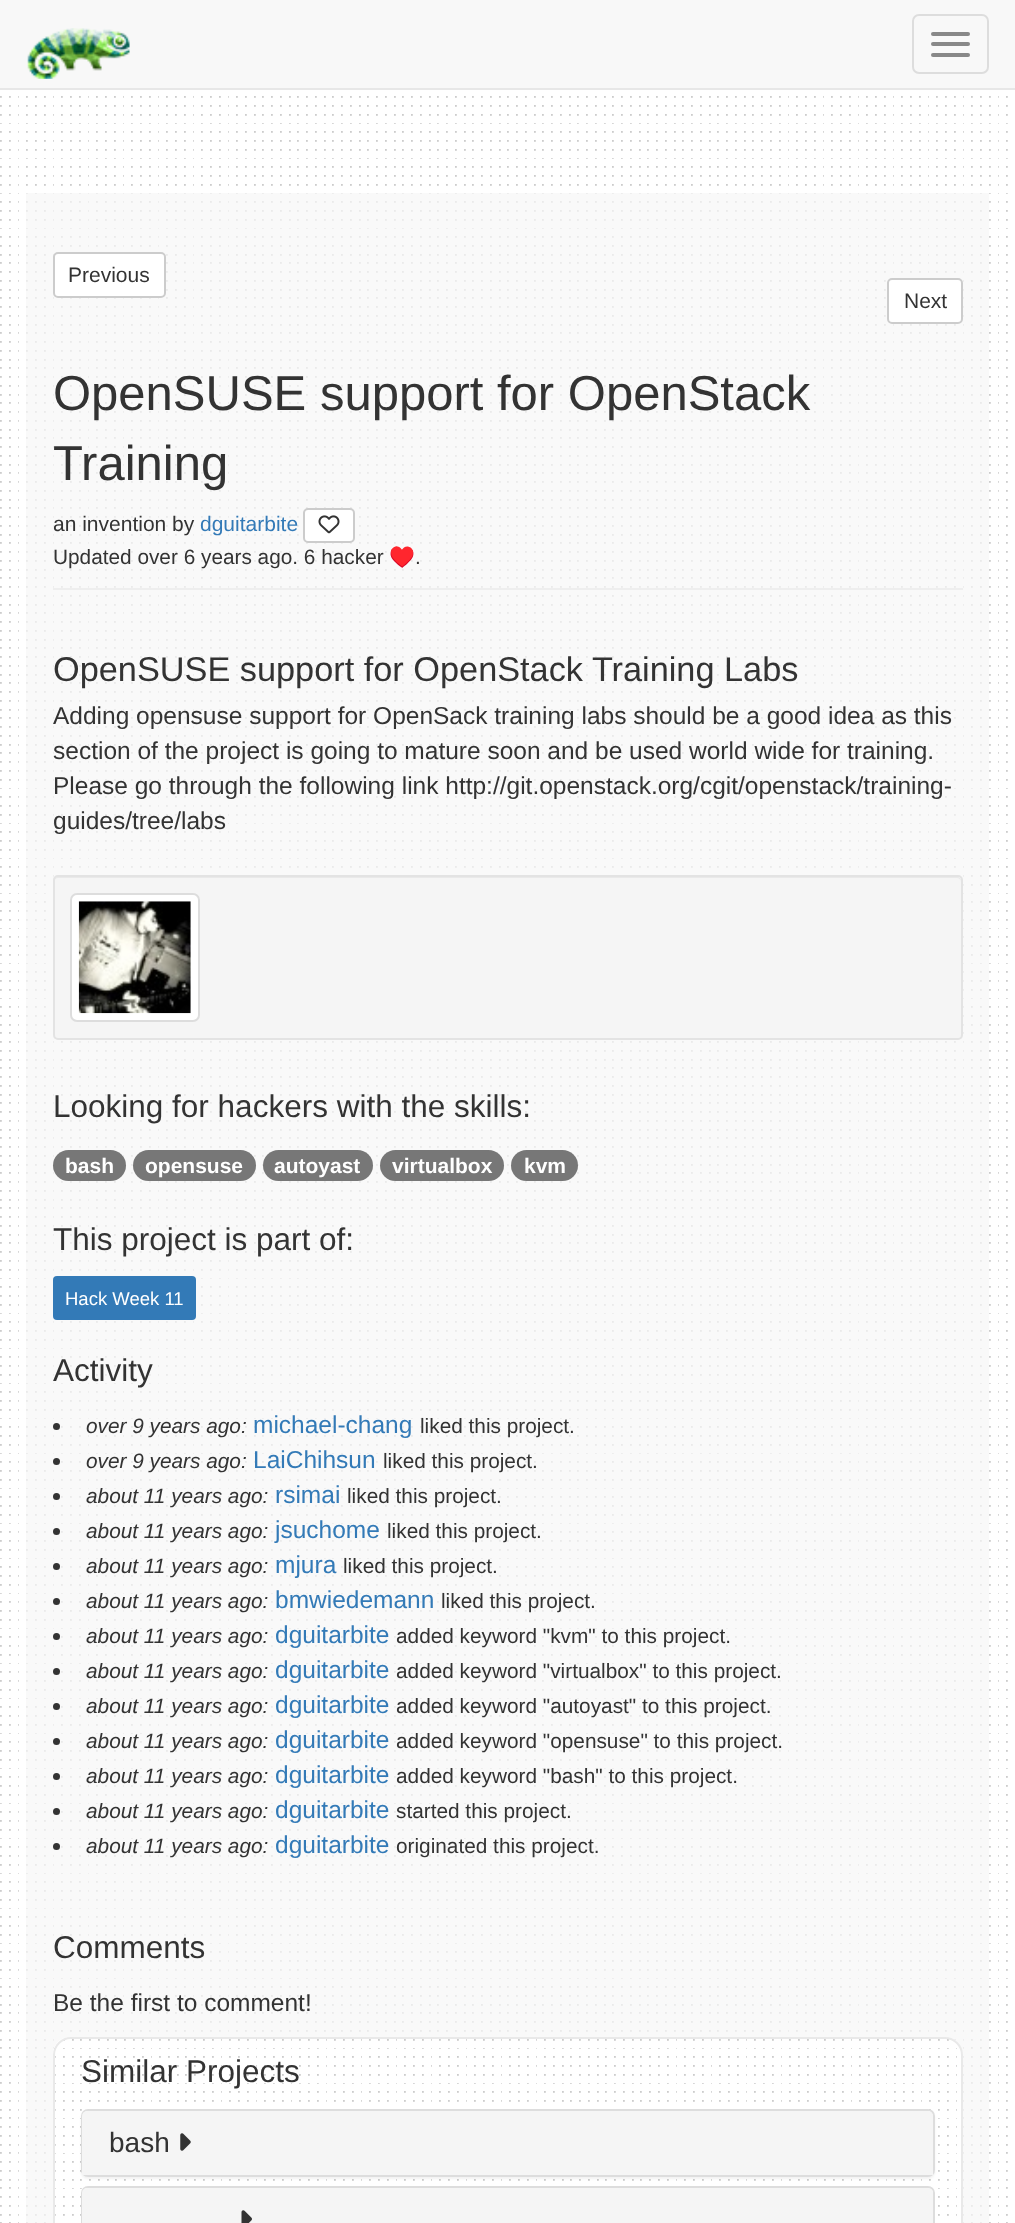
(async () => {
const canvas = document.querySelector("canvas")
canvas.width = 1015
canvas.height = 2223
const c = canvas.getContext("2d")
c.miterLimit = 4
c.fontKerning = "normal"
function T(s,x,y){c.fillText(s,x,y)}
function R(x,y,w,h){c.fillRect(x,y,w,h)}
function Q(x,y,w,h,r){c.beginPath();c.roundRect(x,y,w,h,r);c.fill()}
async function I(src,x,y,w,h){const img=new Image();img.src=src;await img.decode();c.drawImage(img,x,y,w,h)}
let path
c.fillStyle="#fff"
R(0,0,1015,2223)
await I("1.png",0,90,1008,2133)
c.fillStyle="#f8f8f8"
R(0,0,1015,88)
c.fillStyle="#e7e7e7"
R(0,88,1015,2)
await I("2.png",27,28,103,51)
c.beginPath()
c.roundRect(913,15,75,58,6)
c.strokeStyle="#ddd"
c.lineWidth=2
c.stroke()
c.fillStyle="#888"
Q(931,32,39,4,2)
Q(931,42,39,4,2)
Q(931,53,39,4,2)
c.fillStyle="#f6f6f6b3"
R(26,193,963,2030)
c.fillStyle="#fff"
c.beginPath()
c.roundRect(54,253,111,44,4)
c.fill()
c.strokeStyle="#ccc"
c.stroke()
c.font="21px Liberation Sans"
c.fillStyle="#333"
T("Previous",68,282)
c.fillStyle="#fff"
c.beginPath()
c.roundRect(888,279,74,44,4)
c.fill()
c.stroke()
c.fillStyle="#333"
T("Next",904,308)
c.fillStyle="#eee"
R(53,588,910,2)
c.font="49px Liberation Sans"
c.fillStyle="#333"
T("OpenSUSE support for OpenStack",53,410)
T("Training",53,480)
c.font="21px Liberation Sans"
T("an invention by",53,531)
c.fillStyle="#337ab7"
T("dguitarbite",200,531)
c.fillStyle="#fff"
c.beginPath()
c.roundRect(304,509,50,33,4)
c.fill()
c.stroke()
await I("3.png",318,515,22,19)
c.font="20.8px Liberation Sans"
c.fillStyle="#333"
T("Updated over 6 years ago. 6 hacker",53,564)
c.font="20.8px Noto Color Emoji"
T("♥️",389,564)
c.font="20.8px Liberation Sans"
T(".",415,564)
c.font="34.3px Liberation Sans"
T("OpenSUSE support for OpenStack Training Labs",53,681)
c.font="24.5px Liberation Sans"
T("Adding opensuse support for OpenSack training labs should be a good idea as this",53,724)
T("section of the project is going to mature soon and be used world wide for training.",53,759)
T("Please go through the following link http://git.openstack.org/cgit/openstack/training-",53,794)
T("guides/tree/labs",53,829)
c.fillStyle="#f5f5f5"
Q(53,875,910,165,5)
c.fillStyle="#e9e9e9"
path = new Path2D("M58 878h899c2 0 4 2 4 4c0-3-1-5-4-5h-899c-3 0-4 2-4 5c0-2 2-4 4-4z")
c.fill(path)
c.beginPath()
c.roundRect(54,876,908,163,4)
c.strokeStyle="#e3e3e3"
c.stroke()
c.fillStyle="#fff"
c.beginPath()
c.roundRect(71,894,128,127,6)
c.fill()
c.strokeStyle="#ddd"
c.stroke()
await I("4.png",78,901,113,113)
c.font="31.5px Liberation Sans"
c.fillStyle="#333"
T("Looking for hackers with the skills:",53,1117)
c.fillStyle="#777"
Q(53,1150,73,31,15.5)
c.font="bold 21px Liberation Sans"
c.fillStyle="#fff"
T("bash",65,1173)
c.fillStyle="#777"
Q(133,1150,123,31,15.5)
c.fillStyle="#fff"
T("opensuse",145,1173)
c.fillStyle="#777"
Q(263,1150,110,31,15.5)
c.fillStyle="#fff"
T("autoyast",274,1173)
c.fillStyle="#777"
Q(380,1150,124,31,15.5)
c.fillStyle="#fff"
T("virtualbox",392,1173)
c.fillStyle="#777"
Q(511,1150,67,31,15.5)
c.fillStyle="#fff"
T("kvm",524,1173)
c.font="31.5px Liberation Sans"
c.fillStyle="#333"
T("This project is part of:",53,1250)
c.fillStyle="#337ab7"
Q(53,1276,143,44,4)
c.font="18.5px Liberation Sans"
c.fillStyle="#fff"
T("Hack Week 11",65,1305)
c.font="31.5px Liberation Sans"
c.fillStyle="#333"
T("Activity",53,1381)
c.beginPath()
c.arc(56.5,1426.5,3.5,0,7)
c.fill()
c.font="italic 20.8px Liberation Sans"
T("over 9 years ago:",86,1433)
c.font="24.5px Liberation Sans"
c.fillStyle="#337ab7"
T("michael-chang",253,1433)
c.font="20.8px Liberation Sans"
c.fillStyle="#333"
T("liked this project.",420,1433)
c.beginPath()
c.arc(56.5,1461.5,3.5,0,7)
c.fill()
c.font="italic 20.8px Liberation Sans"
T("over 9 years ago:",86,1468)
c.font="24.5px Liberation Sans"
c.fillStyle="#337ab7"
T("LaiChihsun",253,1468)
c.font="20.8px Liberation Sans"
c.fillStyle="#333"
T("liked this project.",383,1468)
c.beginPath()
c.arc(56.5,1496.5,3.5,0,7)
c.fill()
c.font="italic 20.8px Liberation Sans"
T("about 11 years ago:",86,1503)
c.font="24.5px Liberation Sans"
c.fillStyle="#337ab7"
T("rsimai",275,1503)
c.font="20.8px Liberation Sans"
c.fillStyle="#333"
T("liked this project.",347,1503)
c.beginPath()
c.arc(56.5,1531.5,3.5,0,7)
c.fill()
c.font="italic 20.8px Liberation Sans"
T("about 11 years ago:",86,1538)
c.font="24.5px Liberation Sans"
c.fillStyle="#337ab7"
T("jsuchome",275,1538)
c.font="20.8px Liberation Sans"
c.fillStyle="#333"
T("liked this project.",387,1538)
c.beginPath()
c.arc(56.5,1566.5,3.5,0,7)
c.fill()
c.font="italic 20.8px Liberation Sans"
T("about 11 years ago:",86,1573)
c.font="24.5px Liberation Sans"
c.fillStyle="#337ab7"
T("mjura",275,1573)
c.font="20.8px Liberation Sans"
c.fillStyle="#333"
T("liked this project.",343,1573)
c.beginPath()
c.arc(56.5,1601.5,3.5,0,7)
c.fill()
c.font="italic 20.8px Liberation Sans"
T("about 11 years ago:",86,1608)
c.font="24.5px Liberation Sans"
c.fillStyle="#337ab7"
T("bmwiedemann",275,1608)
c.font="20.8px Liberation Sans"
c.fillStyle="#333"
T("liked this project.",441,1608)
c.beginPath()
c.arc(56.5,1636.5,3.5,0,7)
c.fill()
c.font="italic 20.8px Liberation Sans"
T("about 11 years ago:",86,1643)
c.font="24.5px Liberation Sans"
c.fillStyle="#337ab7"
T("dguitarbite",275,1643)
c.font="20.8px Liberation Sans"
c.fillStyle="#333"
T("added keyword \"kvm\" to this project.",396,1643)
c.beginPath()
c.arc(56.5,1671.5,3.5,0,7)
c.fill()
c.font="italic 20.8px Liberation Sans"
T("about 11 years ago:",86,1678)
c.font="24.5px Liberation Sans"
c.fillStyle="#337ab7"
T("dguitarbite",275,1678)
c.font="20.8px Liberation Sans"
c.fillStyle="#333"
T("added keyword \"virtualbox\" to this project.",396,1678)
c.beginPath()
c.arc(56.5,1706.5,3.5,0,7)
c.fill()
c.font="italic 20.8px Liberation Sans"
T("about 11 years ago:",86,1713)
c.font="24.5px Liberation Sans"
c.fillStyle="#337ab7"
T("dguitarbite",275,1713)
c.font="20.8px Liberation Sans"
c.fillStyle="#333"
T("added keyword \"autoyast\" to this project.",396,1713)
c.beginPath()
c.arc(56.5,1741.5,3.5,0,7)
c.fill()
c.font="italic 20.8px Liberation Sans"
T("about 11 years ago:",86,1748)
c.font="24.5px Liberation Sans"
c.fillStyle="#337ab7"
T("dguitarbite",275,1748)
c.font="20.8px Liberation Sans"
c.fillStyle="#333"
T("added keyword \"opensuse\" to this project.",396,1748)
c.beginPath()
c.arc(56.5,1776.5,3.5,0,7)
c.fill()
c.font="italic 20.8px Liberation Sans"
T("about 11 years ago:",86,1783)
c.font="24.5px Liberation Sans"
c.fillStyle="#337ab7"
T("dguitarbite",275,1783)
c.font="20.8px Liberation Sans"
c.fillStyle="#333"
T("added keyword \"bash\" to this project.",396,1783)
c.beginPath()
c.arc(56.5,1811.5,3.5,0,7)
c.fill()
c.font="italic 20.8px Liberation Sans"
T("about 11 years ago:",86,1818)
c.font="24.5px Liberation Sans"
c.fillStyle="#337ab7"
T("dguitarbite",275,1818)
c.font="20.8px Liberation Sans"
c.fillStyle="#333"
T("started this project.",396,1818)
c.beginPath()
c.arc(56.5,1846.5,3.5,0,7)
c.fill()
c.font="italic 20.8px Liberation Sans"
T("about 11 years ago:",86,1853)
c.font="24.5px Liberation Sans"
c.fillStyle="#337ab7"
T("dguitarbite",275,1853)
c.font="20.8px Liberation Sans"
c.fillStyle="#333"
T("originated this project.",396,1853)
c.font="31.5px Liberation Sans"
T("Comments",53,1958)
c.font="24.5px Liberation Sans"
T("Be the first to comment!",53,2011)
await I("5.png",53,2037,909,186)
c.beginPath()
c.roundRect(54,2038,908,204,17)
c.strokeStyle="#e9e9e9"
c.stroke()
c.font="31.5px Liberation Sans"
T("Similar Projects",81,2082)
c.fillStyle="#0000000d"
c.filter="blur(1px)"
c.beginPath()
c.roundRect(81,2111,854,68,7)
c.fill()
c.filter="none"
c.beginPath()
c.roundRect(82,2110,852,66,6)
c.strokeStyle="#ddd"
c.stroke()
c.fillStyle="#f5f5f5"
c.beginPath()
c.roundRect(82,2111,851,64,[5,5,0,0])
c.fill()
c.font="28px Liberation Sans"
c.fillStyle="#333"
T("bash",109,2152)
await I("6.png",180,2133,11,18)
c.beginPath()
c.roundRect(82,2187,852,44,6)
c.stroke()
c.fillStyle="#f5f5f5"
path = new Path2D("M87 2188h841c3 0 5 2 5 5v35h-851v-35c0-3 2-5 5-5z")
c.fill(path)
await I("7.png",241,2210,11,13)
})()
